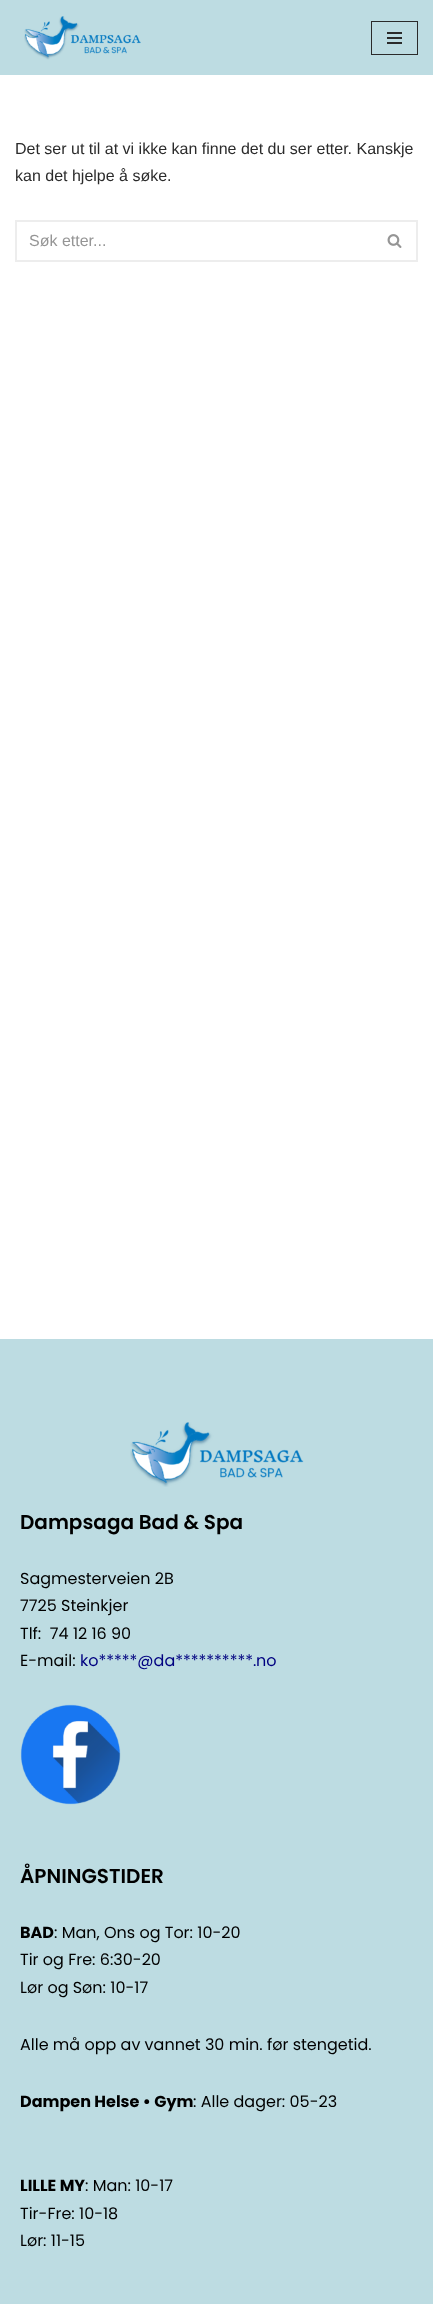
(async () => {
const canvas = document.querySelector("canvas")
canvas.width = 433
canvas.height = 2304
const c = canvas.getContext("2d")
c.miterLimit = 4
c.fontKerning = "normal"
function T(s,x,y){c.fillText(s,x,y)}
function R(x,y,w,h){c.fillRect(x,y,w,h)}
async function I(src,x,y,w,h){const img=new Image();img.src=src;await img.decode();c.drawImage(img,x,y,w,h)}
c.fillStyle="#fff"
R(0,0,433,2304)
c.fillStyle="#bddce2"
R(0,0,433,75)
await I("1.png",24,16,117,44)
c.strokeStyle="#2b2b2b"
c.strokeRect(371.5,21.5,46,33)
c.fillStyle="#2b2b2b"
R(387,32,15,2)
R(387,37,15,2)
R(387,42,15,2)
c.font="16px Liberation Sans"
T("Det ser ut til at vi ikke kan finne det du ser etter. Kanskje",15,154)
T("kan det hjelpe å søke.",15,181)
c.fillStyle="#ededed"
R(15,220,403,2)
R(15,260,358,2)
R(15,220,2,42)
c.fillStyle="#959595"
T("Søk etter...",29,246)
c.fillStyle="#ededed"
R(416,220,2,42)
R(373,260,45,2)
await I("2.png",387,234,15,14)
c.fillStyle="#bddce2"
R(0,1339,433,965)
await I("3.png",130,1422,174,65)
c.font="600 20px Poppins"
c.fillStyle="#000"
T("Dampsaga Bad & Spa",20,1529)
c.font="16px Poppins"
T("Sagmesterveien 2B",20,1584)
T("7725 Steinkjer",20,1611)
T("Tlf:  74 12 16 90",20,1639)
T("E-mail:",20,1666)
c.fillStyle="#000080"
T("ko*****@da**********.",80,1666)
T("no",256,1666)
await I("4.png",20,1704,101,101)
c.font="600 20px Poppins"
c.fillStyle="#000"
T("ÅPNINGSTIDER",20,1883)
c.font="bold 16px Poppins"
T("BAD",20,1938)
c.font="16px Poppins"
T(": Man, Ons og Tor: 10-20",54,1938)
T("Tir og Fre: 6:30-20",20,1965)
T("Lør og Søn: 10-17",20,1993)
T("Alle må opp av vannet 30 min. før stengetid.",20,2050)
c.font="bold 16px Poppins"
T("Dampen Helse • Gym",20,2107)
c.font="16px Poppins"
T(": Alle dager: 05-23",193,2107)
c.font="bold 16px Poppins"
T("LILLE MY",20,2191)
c.font="16px Poppins"
T(": Man: 10-17",85,2191)
T("Tir-Fre: 10-18",20,2219)
T("Lør: 11-15",20,2246)
})()
